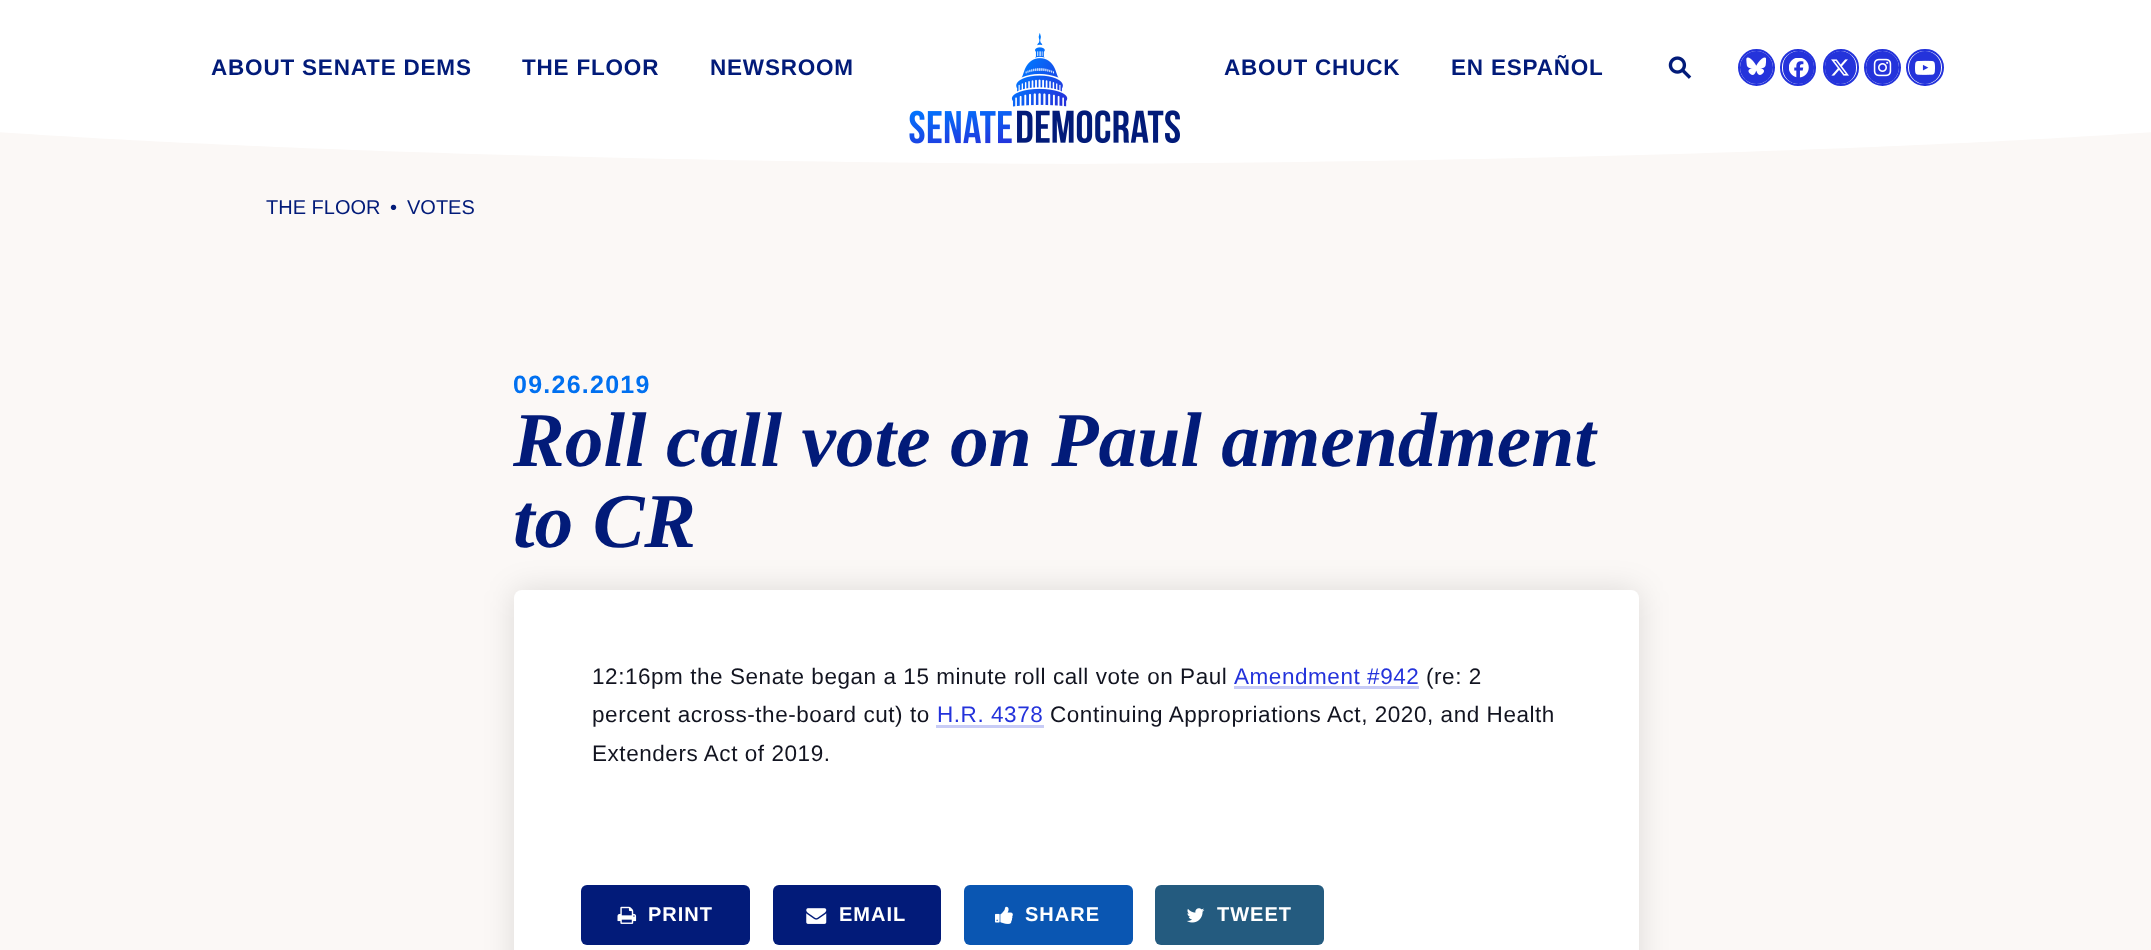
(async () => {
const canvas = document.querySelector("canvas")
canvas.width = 2151
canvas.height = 950
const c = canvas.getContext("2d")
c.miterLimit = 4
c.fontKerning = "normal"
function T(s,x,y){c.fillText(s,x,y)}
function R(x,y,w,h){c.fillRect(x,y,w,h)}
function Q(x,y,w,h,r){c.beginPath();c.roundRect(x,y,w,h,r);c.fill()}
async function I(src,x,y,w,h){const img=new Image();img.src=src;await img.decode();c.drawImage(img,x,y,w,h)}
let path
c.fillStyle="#fbf8f6"
R(0,0,2151,950)
c.fillStyle="#fff"
R(0,0,2151,124)
c.letterSpacing="0.8px"
c.font="bold 22.5px Arimo"
c.fillStyle="#021b79"
T("ABOUT SENATE DEMS",211,75)
T("THE FLOOR",522,75)
T("NEWSROOM",710,75)
c.fillStyle="#fff"
path = new Path2D("M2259 124c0 0-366 36-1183 40c-818-4-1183-40-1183-40")
c.fill(path)
await I("1.png",909,33,271,111)
c.fillStyle="#021b79"
T("ABOUT CHUCK",1224,75)
T("EN ESPAÑOL",1451,75)
await I("2.png",1668,56,24,23)
c.beginPath()
c.arc(1756.5,67.5,17.5,0,7)
c.strokeStyle="#2433db"
c.lineWidth=2
c.stroke()
c.fillStyle="#2433db"
c.beginPath()
c.arc(1756.5,67.5,16.5,0,7)
c.fill()
await I("3.png",1746,57,20,18)
c.beginPath()
c.roundRect(1781,50,34,35,17)
c.stroke()
Q(1783,51,31,33,15.5)
await I("4.png",1789,58,20,20)
c.beginPath()
c.roundRect(1824,50,34,35,17)
c.stroke()
Q(1825,51,31,33,15.5)
await I("5.png",1831,59,18,17)
c.beginPath()
c.arc(1882.5,67.5,17.5,0,7)
c.stroke()
c.beginPath()
c.arc(1882.5,67.5,16.5,0,7)
c.fill()
await I("6.png",1873,58,19,19)
c.beginPath()
c.roundRect(1907,50,36,35,17.5)
c.stroke()
Q(1909,51,32,33,16)
await I("7.png",1915,60,20,15)
c.letterSpacing="0px"
c.font="20px Arimo"
c.fillStyle="#021b79"
T("THE FLOOR",266,214)
T("•",390,214)
T("VOTES",407,214)
c.letterSpacing="1.25px"
c.font="bold 25px Arimo"
c.fillStyle="#0070f0"
T("09.26.2019",513,393)
c.letterSpacing="0px"
c.font="italic bold 77.5px Tinos"
c.fillStyle="#021b79"
T("Roll call vote on Paul amendment",513,466)
c.fillStyle="#0000001f"
c.filter="blur(15.5px)"
c.beginPath()
c.roundRect(514,590,1125,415,8)
c.fill()
c.filter="none"
c.fillStyle="#021b79"
T("to CR",513,547)
c.fillStyle="#fff"
Q(514,590,1125,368,8)
c.letterSpacing="0.55px"
c.font="22.5px Arimo"
c.fillStyle="#121420"
T("12:16pm the Senate began a 15 minute roll call vote on Paul",592,684)
c.fillStyle="#2433db"
T("Amendment #942",1234,684)
c.fillStyle="#c8ccf6"
R(1234,686,185,3)
c.fillStyle="#121420"
T("(re: 2",1426,684)
T("percent across-the-board cut) to",592,722)
c.fillStyle="#2433db"
T("H.R. 4378",937,722)
c.fillStyle="#c8ccf6"
R(936,725,108,3)
c.fillStyle="#121420"
T("Continuing Appropriations Act, 2020, and Health",1050,722)
T("Extenders Act of 2019.",592,761)
c.fillStyle="#021b79"
Q(581,885,169,60,6)
await I("8.png",617,906,20,18)
c.letterSpacing="1px"
c.font="bold 20px Arimo"
c.fillStyle="#fff"
T("PRINT",648,921)
c.fillStyle="#021b79"
Q(773,885,168,60,6)
await I("9.png",806,908,21,16)
c.fillStyle="#fff"
T("EMAIL",839,921)
c.fillStyle="#0a56b2"
Q(964,885,169,60,6)
await I("10.png",995,906,18,18)
c.fillStyle="#fff"
T("SHARE",1025,921)
c.fillStyle="#245b7f"
Q(1155,885,169,60,6)
await I("11.png",1186,908,19,15)
c.fillStyle="#fff"
T("TWEET",1217,921)
})()
